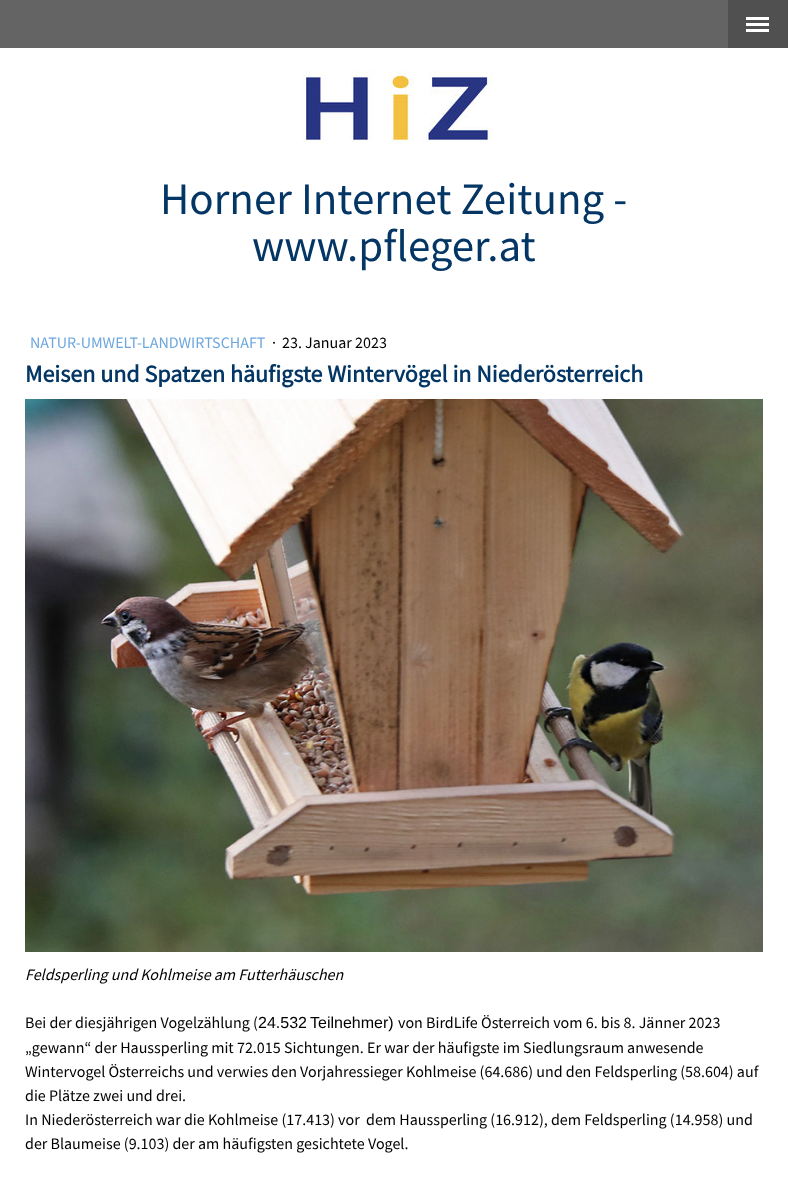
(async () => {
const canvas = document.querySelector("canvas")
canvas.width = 788
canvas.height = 1185
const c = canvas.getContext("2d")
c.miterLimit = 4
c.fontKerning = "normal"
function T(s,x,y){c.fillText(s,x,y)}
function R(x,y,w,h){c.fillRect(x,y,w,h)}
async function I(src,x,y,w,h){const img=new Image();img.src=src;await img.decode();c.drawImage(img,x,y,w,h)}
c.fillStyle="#fff"
R(0,0,788,1185)
c.fillStyle="#505050"
R(728,0,60,48)
c.fillStyle="#fff"
R(746,23,23,3)
R(746,17,23,3)
R(746,29,23,3)
c.fillStyle="#646464"
R(0,0,728,48)
await I("1.png",302,70,192,72)
c.font="45px Source Sans Pro"
c.fillStyle="#033664"
T("Horner Internet Zeitung -",160,214)
T("www.pfleger.at",252,261)
c.font="16px Source Sans Pro"
c.fillStyle="#6da7de"
T("NATUR-UMWELT-LANDWIRTSCHAFT",30,348)
c.fillStyle="#000"
T("·",272,348)
T("23. Januar 2023",282,348)
c.font="bold 24px Source Sans Pro"
c.fillStyle="#033664"
T("Meisen und Spatzen häufigste Wintervögel in Niederösterreich",25,382)
await I("2.png",25,399,738,553)
c.font="italic 16px Source Sans Pro"
c.fillStyle="#000"
T("Feldsperling und Kohlmeise am Futterhäuschen",25,980)
c.font="16px Source Sans Pro"
T("Bei der diesjährigen Vogelzählung (",25,1028)
c.font="16px Liberation Sans"
T("24.532",258,1028)
T("Teilnehmer)",310,1028)
c.font="16px Source Sans Pro"
T("von BirdLife Österreich vom 6. bis 8. Jänner 2023",398,1028)
T("„gewann“ der Haussperling mit 72.015 Sichtungen. Er war der häufigste im Siedlungsraum anwesende",25,1053)
T("Wintervogel Österreichs und verwies den Vorjahressieger Kohlmeise (64.686) und den Feldsperling (58.604) auf",25,1077)
T("die Plätze zwei und drei.",25,1101)
T("In Niederösterreich war die Kohlmeise (17.413) vor",25,1125)
T("dem Haussperling (16.912), dem Feldsperling (14.958) und",366,1125)
T("der Blaumeise (9.103) der am häufigsten gesichtete Vogel.",25,1149)
})()
